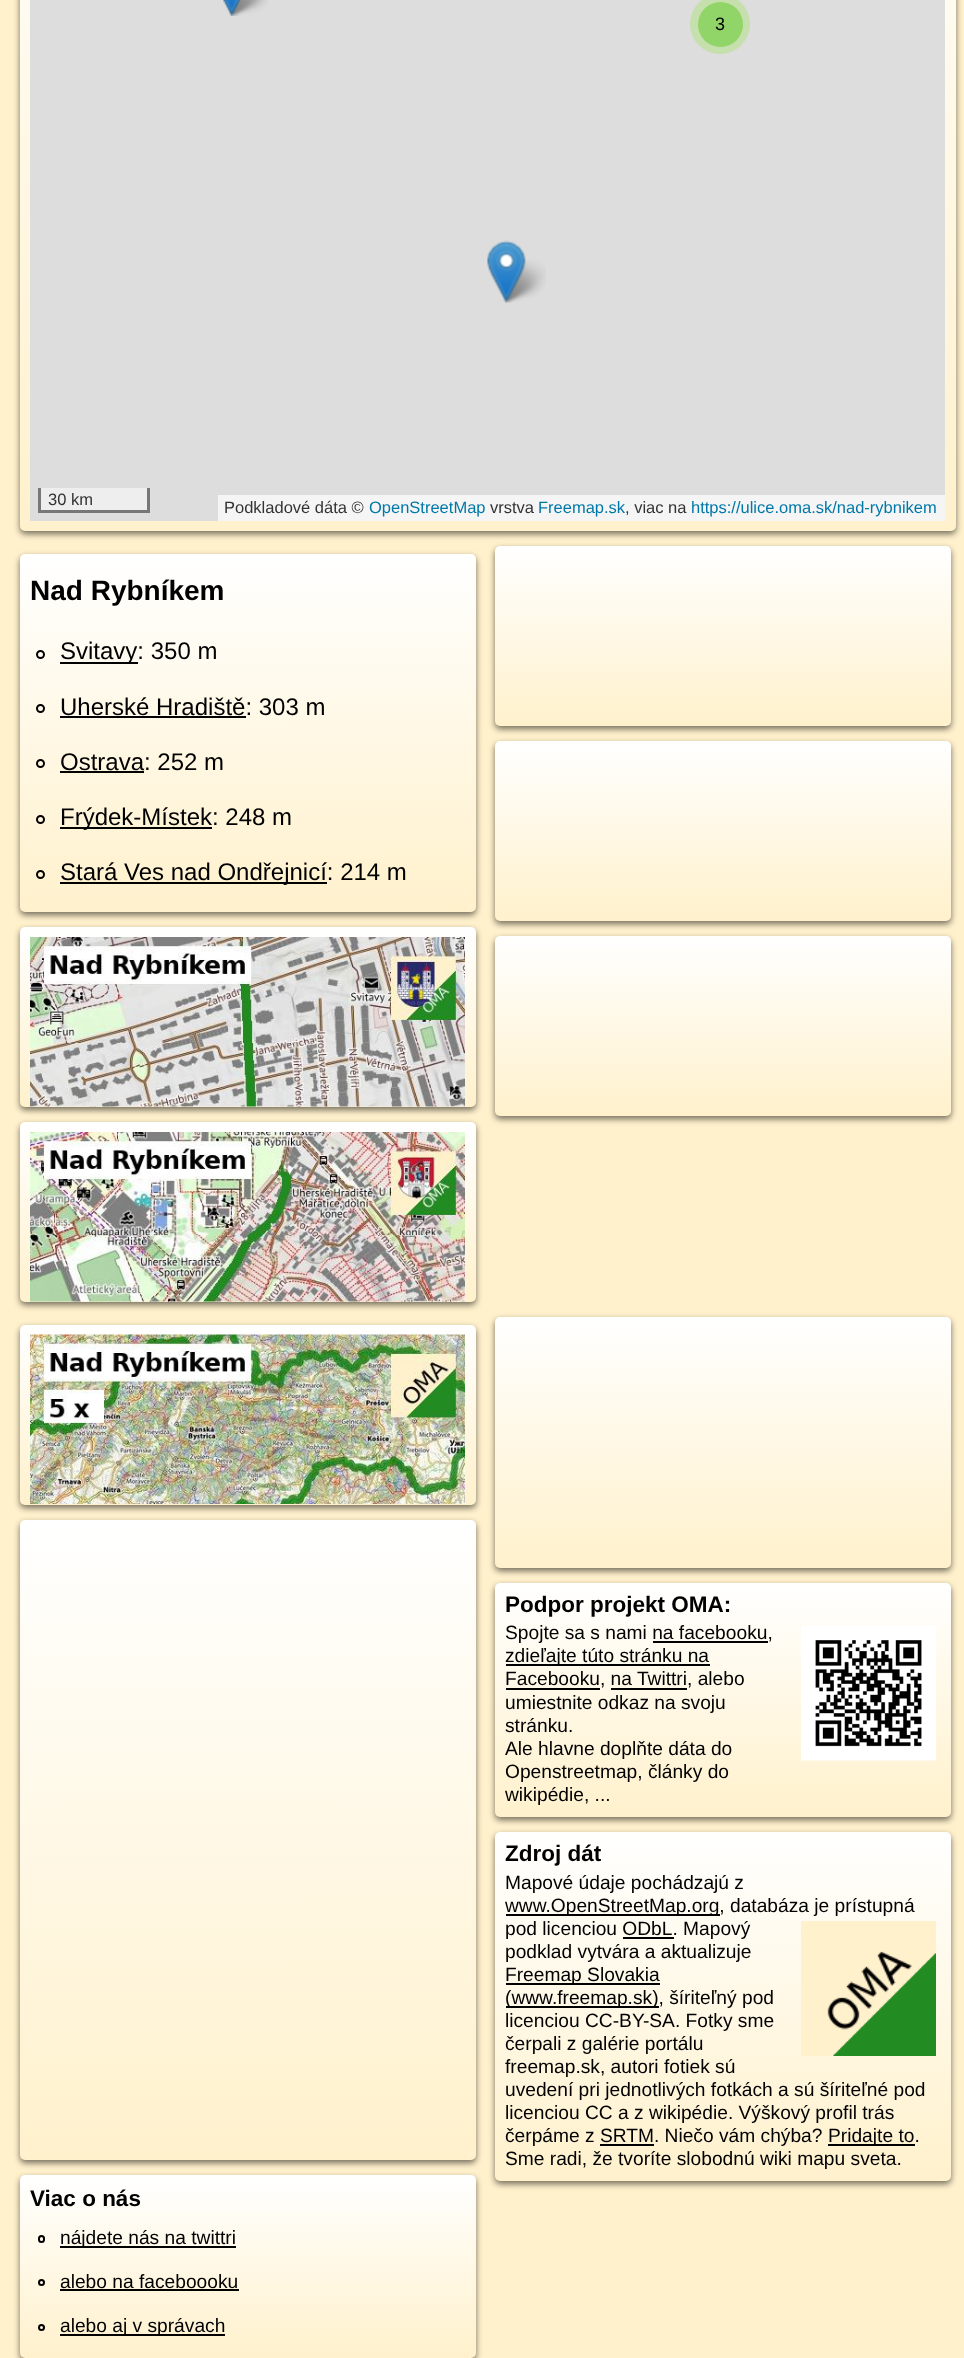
(async () => {
const canvas = document.querySelector("canvas")
canvas.width = 964
canvas.height = 2358
const c = canvas.getContext("2d")
c.miterLimit = 4
c.fontKerning = "normal"
function T(s,x,y){c.fillText(s,x,y)}
function R(x,y,w,h){c.fillRect(x,y,w,h)}
function Q(x,y,w,h,r){c.beginPath();c.roundRect(x,y,w,h,r);c.fill()}
async function I(src,x,y,w,h){const img=new Image();img.src=src;await img.decode();c.drawImage(img,x,y,w,h)}
let gradient
c.fillStyle="#fff1cc"
R(0,0,964,2358)
c.fillStyle="#0000008c"
c.filter="blur(3px)"
c.beginPath()
c.roundRect(20,-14,936,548,5)
c.fill()
c.filter="none"
gradient = c.createLinearGradient(487,-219,488,531)
gradient.addColorStop(0,"#fff")
gradient.addColorStop(1,"#fff1cc")
c.fillStyle = gradient
Q(20,-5,936,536,5)
c.fillStyle="#ddd"
R(30,0,915,521)
await I("1.png",226,0,42,16)
await I("2.png",501,260,45,43)
await I("3.png",223,0,18,16)
c.fillStyle="#c5e0ac"
c.beginPath()
c.arc(720,24,30,0,7)
c.fill()
c.fillStyle="#91d467"
c.beginPath()
c.arc(720.5,24.5,22.5,0,7)
c.fill()
c.font="18px Liberation Sans"
c.fillStyle="#000"
T("3",715,30)
await I("4.png",487,240,39,63)
c.fillStyle="#eee"
R(41,488,106,22)
c.fillStyle="#777"
R(147,488,3,25)
R(38,510,112,3)
R(38,488,3,25)
c.font="16.5px Liberation Sans"
c.fillStyle="#333"
T("30 km",48,505)
c.fillStyle="#f5f5f5"
R(218,495,727,26)
c.fillStyle="#333"
T("Podkladové dáta ©",224,513)
c.fillStyle="#0078a8"
T("OpenStreetMap",369,513)
c.fillStyle="#333"
T("vrstva",490,513)
c.fillStyle="#0078a8"
T("Freemap.sk",538,513)
c.fillStyle="#333"
T(", viac na",625,513)
c.fillStyle="#0078a8"
T("https://ulice.oma.sk/nad-rybnikem",691,513)
c.fillStyle="#0000008c"
c.filter="blur(3px)"
c.beginPath()
c.roundRect(20,557,456,358,5)
c.fill()
c.filter="none"
gradient = c.createLinearGradient(247,554,248,912)
gradient.addColorStop(0,"#fff")
gradient.addColorStop(1,"#fff1cc")
c.fillStyle = gradient
Q(20,554,456,358,5)
c.font="bold 28px Liberation Sans"
c.fillStyle="#000"
T("Nad Rybníkem",30,600)
c.beginPath()
c.arc(40.5,654.5,3.5,0,7)
c.strokeStyle="#000"
c.lineWidth=2
c.stroke()
R(60,662,78,2)
c.font="24px Liberation Sans"
T("Svitavy: 350 m",60,659)
c.beginPath()
c.arc(40.5,708.5,3.5,0,7)
c.stroke()
T("Uherské Hradiště: 303 m",60,715)
R(60,716,186,2)
c.beginPath()
c.arc(40.5,763.5,3.5,0,7)
c.stroke()
T("Ostrava: 252 m",60,770)
R(60,771,84,2)
c.beginPath()
c.arc(40.5,819.5,3.5,0,7)
c.stroke()
R(60,827,152,2)
T("Frýdek-Místek: 248 m",60,825)
c.beginPath()
c.arc(40.5,874.5,3.5,0,7)
c.stroke()
R(60,882,267,2)
T("Stará Ves nad Ondřejnicí: 214 m",60,880)
c.fillStyle="#0000008c"
c.filter="blur(3px)"
c.beginPath()
c.roundRect(495,549,456,180,5)
c.fill()
c.filter="none"
gradient = c.createLinearGradient(723,546,723,726)
gradient.addColorStop(0,"#fff")
gradient.addColorStop(1,"#fff1cc")
c.fillStyle = gradient
Q(495,546,456,180,5)
c.fillStyle="#0000008c"
c.filter="blur(3px)"
c.beginPath()
c.roundRect(495,744,456,180,5)
c.fill()
c.filter="none"
gradient = c.createLinearGradient(723,741,723,921)
gradient.addColorStop(0,"#fff")
gradient.addColorStop(1,"#fff1cc")
c.fillStyle = gradient
Q(495,741,456,180,5)
c.fillStyle="#0000008c"
c.filter="blur(3px)"
c.beginPath()
c.roundRect(20,930,456,180,5)
c.fill()
c.filter="none"
gradient = c.createLinearGradient(248,927,248,1107)
gradient.addColorStop(0,"#fff")
gradient.addColorStop(1,"#fff1cc")
c.fillStyle = gradient
Q(20,927,456,180,5)
await I("5.png",30,937,435,170)
c.fillStyle="#0000008c"
c.filter="blur(3px)"
c.beginPath()
c.roundRect(495,939,456,180,5)
c.fill()
c.filter="none"
gradient = c.createLinearGradient(723,936,723,1116)
gradient.addColorStop(0,"#fff")
gradient.addColorStop(1,"#fff1cc")
c.fillStyle = gradient
Q(495,936,456,180,5)
c.fillStyle="#0000008c"
c.filter="blur(3px)"
c.beginPath()
c.roundRect(20,1125,456,180,5)
c.fill()
c.filter="none"
gradient = c.createLinearGradient(248,1122,248,1302)
gradient.addColorStop(0,"#fff")
gradient.addColorStop(1,"#fff1cc")
c.fillStyle = gradient
Q(20,1122,456,180,5)
await I("6.png",30,1132,435,170)
c.fillStyle="#0000008c"
c.filter="blur(3px)"
c.beginPath()
c.roundRect(20,1328,456,180,5)
c.fill()
c.filter="none"
gradient = c.createLinearGradient(248,1325,248,1505)
gradient.addColorStop(0,"#fff")
gradient.addColorStop(1,"#fff1cc")
c.fillStyle = gradient
Q(20,1325,456,180,5)
await I("7.png",30,1334,435,170)
c.fillStyle="#0000008c"
c.filter="blur(3px)"
c.beginPath()
c.roundRect(495,1320,456,251,5)
c.fill()
c.filter="none"
gradient = c.createLinearGradient(723,1317,723,1568)
gradient.addColorStop(0,"#fff")
gradient.addColorStop(1,"#fff1cc")
c.fillStyle = gradient
Q(495,1317,456,251,5)
c.fillStyle="#0000008c"
c.filter="blur(3px)"
c.beginPath()
c.roundRect(20,1523,456,640,5)
c.fill()
c.filter="none"
gradient = c.createLinearGradient(247,1520,248,2160)
gradient.addColorStop(0,"#fff")
gradient.addColorStop(1,"#fff1cc")
c.fillStyle = gradient
Q(20,1520,456,640,5)
c.fillStyle="#0000008c"
c.filter="blur(3px)"
c.beginPath()
c.roundRect(495,1586,456,234,5)
c.fill()
c.filter="none"
gradient = c.createLinearGradient(723,1583,723,1817)
gradient.addColorStop(0,"#fff")
gradient.addColorStop(1,"#fff1cc")
c.fillStyle = gradient
Q(495,1583,456,234,5)
c.font="bold 22.5px Liberation Sans"
c.fillStyle="#000"
T("Podpor projekt OMA:",505,1612)
c.font="19.2px Liberation Sans"
T("Spojte sa s nami na facebooku,",505,1639)
R(653,1641,115,2)
R(506,1664,204,2)
T("zdieľajte túto stránku na",505,1662)
T("Facebooku, na Twittri, alebo",505,1685)
R(506,1688,94,2)
R(611,1688,76,2)
T("umiestnite odkaz na svoju",505,1709)
T("stránku.",505,1732)
await I("8.png",801,1625,135,136)
T("Ale hlavne doplňte dáta do",505,1755)
T("Openstreetmap, články do",505,1778)
T("wikipédie, ...",505,1801)
c.fillStyle="#0000008c"
c.filter="blur(3px)"
c.beginPath()
c.roundRect(495,1835,456,349,5)
c.fill()
c.filter="none"
gradient = c.createLinearGradient(723,1832,723,2181)
gradient.addColorStop(0,"#fff")
gradient.addColorStop(1,"#fff1cc")
c.fillStyle = gradient
Q(495,1832,456,349,5)
c.font="bold 22.5px Liberation Sans"
c.fillStyle="#000"
T("Zdroj dát",505,1861)
c.font="19.2px Liberation Sans"
T("Mapové údaje pochádzajú z",505,1889)
R(506,1914,214,2)
T("www.OpenStreetMap.org, databáza je prístupná",505,1912)
T("pod licenciou ODbL. Mapový",505,1935)
await I("9.png",801,1921,135,135)
R(623,1937,51,2)
T("podklad vytvára a aktualizuje",505,1958)
R(506,1983,154,2)
T("Freemap Slovakia",505,1981)
R(506,2006,153,2)
T("(www.freemap.sk), šíriteľný pod",505,2004)
T("licenciou CC-BY-SA. Fotky sme",505,2027)
T("čerpali z galérie portálu",505,2050)
T("freemap.sk, autori fotiek sú",505,2073)
T("uvedení pri jednotlivých fotkách a sú šíriteľné pod",505,2096)
T("licenciou CC a z wikipédie. Výškový profil trás",505,2119)
T("čerpáme z SRTM. Niečo vám chýba?",505,2142)
R(828,2144,87,2)
T("Pridajte to.",828,2142)
R(600,2144,54,2)
T("Sme radi, že tvoríte slobodnú wiki mapu sveta.",505,2165)
c.fillStyle="#0000008c"
c.filter="blur(3px)"
c.beginPath()
c.roundRect(20,2178,456,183,5)
c.fill()
c.filter="none"
gradient = c.createLinearGradient(248,2175,248,2358)
gradient.addColorStop(0,"#fff")
gradient.addColorStop(1,"#fff1cc")
c.fillStyle = gradient
Q(20,2175,456,183,5)
c.font="bold 22.5px Liberation Sans"
c.fillStyle="#000"
T("Viac o nás",30,2206)
c.beginPath()
c.roundRect(39,2236,5,6,2.5)
c.stroke()
R(60,2246,176,2)
c.font="19.2px Liberation Sans"
T("nájdete nás na twittri",60,2244)
c.beginPath()
c.arc(41.5,2282.5,2.5,0,7)
c.stroke()
T("alebo na faceboooku",60,2288)
R(60,2289,179,2)
c.beginPath()
c.arc(41.5,2327.5,2.5,0,7)
c.stroke()
R(60,2334,165,2)
T("alebo aj v správach",60,2332)
})()
